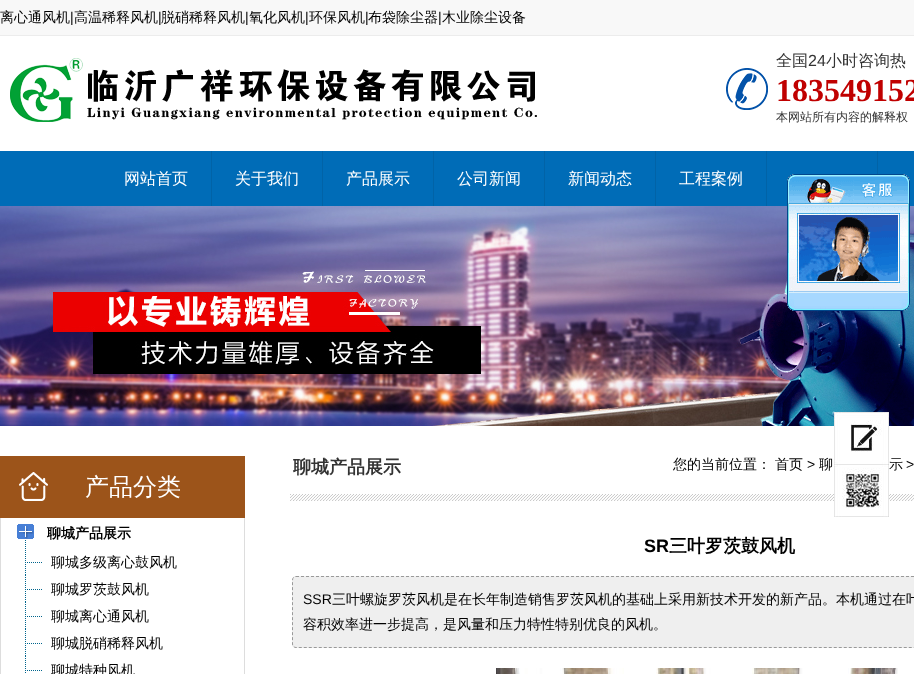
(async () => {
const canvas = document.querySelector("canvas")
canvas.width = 914
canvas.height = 674
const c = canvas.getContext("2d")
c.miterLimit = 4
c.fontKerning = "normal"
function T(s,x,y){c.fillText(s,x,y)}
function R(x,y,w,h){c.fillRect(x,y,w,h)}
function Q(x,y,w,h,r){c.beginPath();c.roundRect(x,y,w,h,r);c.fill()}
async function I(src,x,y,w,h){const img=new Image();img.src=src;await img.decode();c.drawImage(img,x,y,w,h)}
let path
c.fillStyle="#fff"
R(0,0,914,674)
c.fillStyle="#f8f8f8"
R(0,0,914,35)
c.fillStyle="#ececec"
R(0,35,914,1)
c.font="500 14px WenQuanYi Zen Hei"
c.fillStyle="#000"
T("离心通风机",0,22)
c.font="14px Liberation Sans"
T("|",70,22)
c.font="500 14px WenQuanYi Zen Hei"
T("高温稀释风机",74,22)
c.font="14px Liberation Sans"
T("|",158,22)
c.font="500 14px WenQuanYi Zen Hei"
T("脱硝稀释风机",161,22)
c.font="14px Liberation Sans"
T("|",245,22)
c.font="500 14px WenQuanYi Zen Hei"
T("氧化风机",249,22)
c.font="14px Liberation Sans"
T("|",305,22)
c.font="500 14px WenQuanYi Zen Hei"
T("环保风机",309,22)
c.font="14px Liberation Sans"
T("|",365,22)
c.font="500 14px WenQuanYi Zen Hei"
T("布袋除尘器",368,22)
c.font="14px Liberation Sans"
T("|",438,22)
c.font="500 14px WenQuanYi Zen Hei"
T("木业除尘设备",442,22)
await I("1.png",10,58,527,64)
await I("2.png",726,68,42,42)
c.font="500 16px WenQuanYi Zen Hei"
c.fillStyle="#333"
T("全国",776,66)
c.font="16px Liberation Sans"
T("24",808,66)
c.font="500 16px WenQuanYi Zen Hei"
T("小时咨询热",826,66)
c.font="bold 32px Liberation Serif"
c.fillStyle="#c00000"
T("183549152",776,101)
c.font="500 12px WenQuanYi Zen Hei"
c.fillStyle="#333"
T("本网站所有内容的解释权",776,121)
c.fillStyle="#006cb7"
R(0,151,914,55)
c.fillStyle="#0163a7"
R(766,151,1,55)
R(877,151,1,23)
c.font="500 16px WenQuanYi Zen Hei"
c.fillStyle="#fff"
T("网站首页",124,184)
c.fillStyle="#0163a7"
R(211,151,1,55)
c.fillStyle="#fff"
T("关于我们",235,184)
c.fillStyle="#0163a7"
R(322,151,1,55)
c.fillStyle="#fff"
T("产品展示",346,184)
c.fillStyle="#0163a7"
R(433,151,1,55)
c.fillStyle="#fff"
T("公司新闻",457,184)
c.fillStyle="#0163a7"
R(544,151,1,55)
c.fillStyle="#fff"
T("新闻动态",568,184)
c.fillStyle="#0163a7"
R(655,151,1,55)
c.fillStyle="#fff"
T("工程案例",679,184)
await I("5.png",0,206,914,220)
await I("3.png",787,174,123,125)
await I("4.png",787,299,123,12)
c.font="500 14px WenQuanYi Zen Hei"
c.fillStyle="#000"
T("示",889,469)
await I("6.png",834,412,55,53)
await I("12.png",290,494,624,7)
await I("7.png",834,465,55,52)
c.fillStyle="#9c541a"
R(0,456,245,62)
await I("8.png",19,472,29,29)
c.font="500 24px WenQuanYi Zen Hei"
c.fillStyle="#fff"
T("产品分类",85,495)
c.fillStyle="#ddd"
R(244,518,1,156)
R(0,518,1,156)
await I("9.png",17,524,17,23)
c.font="bold 14px WenQuanYi Zen Hei"
c.fillStyle="#000"
T("聊城产品展示",47,538)
await I("10.png",25,548,17,27)
c.font="500 14px WenQuanYi Zen Hei"
T("聊城多级离心鼓风机",51,567)
await I("10.png",25,575,17,27)
T("聊城罗茨鼓风机",51,594)
await I("10.png",25,602,17,27)
T("聊城离心通风机",51,621)
await I("10.png",25,629,17,27)
T("聊城脱硝稀释风机",51,648)
await I("11.png",25,656,17,17)
T("聊城特种风机",51,675)
c.font="bold 18px WenQuanYi Zen Hei"
c.fillStyle="#333"
T("聊城产品展示",293,473)
c.font="500 14px WenQuanYi Zen Hei"
c.fillStyle="#000"
T("您的当前位置：",673,469)
T("首页",775,469)
c.font="14px Liberation Sans"
T(">",807,469)
c.font="500 14px WenQuanYi Zen Hei"
T("聊",819,469)
c.font="14px Liberation Sans"
T(">",906,469)
c.font="bold 18px Liberation Sans"
T("SR",644,552)
c.font="bold 18px WenQuanYi Zen Hei"
T("三叶罗茨鼓风机",669,552)
c.fillStyle="#efefef"
Q(292,576,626,72,4)
path = new Path2D("M296 576.5h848c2 0 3.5 1.5 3.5 3.5v64c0 2-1.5 3.5-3.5 3.5h-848c-2 0-3.5-1.5-3.5-3.5v-64c0-2 1.5-3.5 3.5-3.5z")
c.strokeStyle="#999"
c.setLineDash([3,2])
c.stroke(path)
c.font="14px Liberation Sans"
c.fillStyle="#000"
T("SSR",303,604)
c.font="500 14px WenQuanYi Zen Hei"
T("三叶螺旋罗茨风机是在长年制造销售罗茨风机的基础上采用新技术开发的新产品。本机通过在叶",332,604)
T("容积效率进一步提高，是风量和压力特性特别优良的风机。",303,629)
await I("13.png",496,668,402,6)
})()
